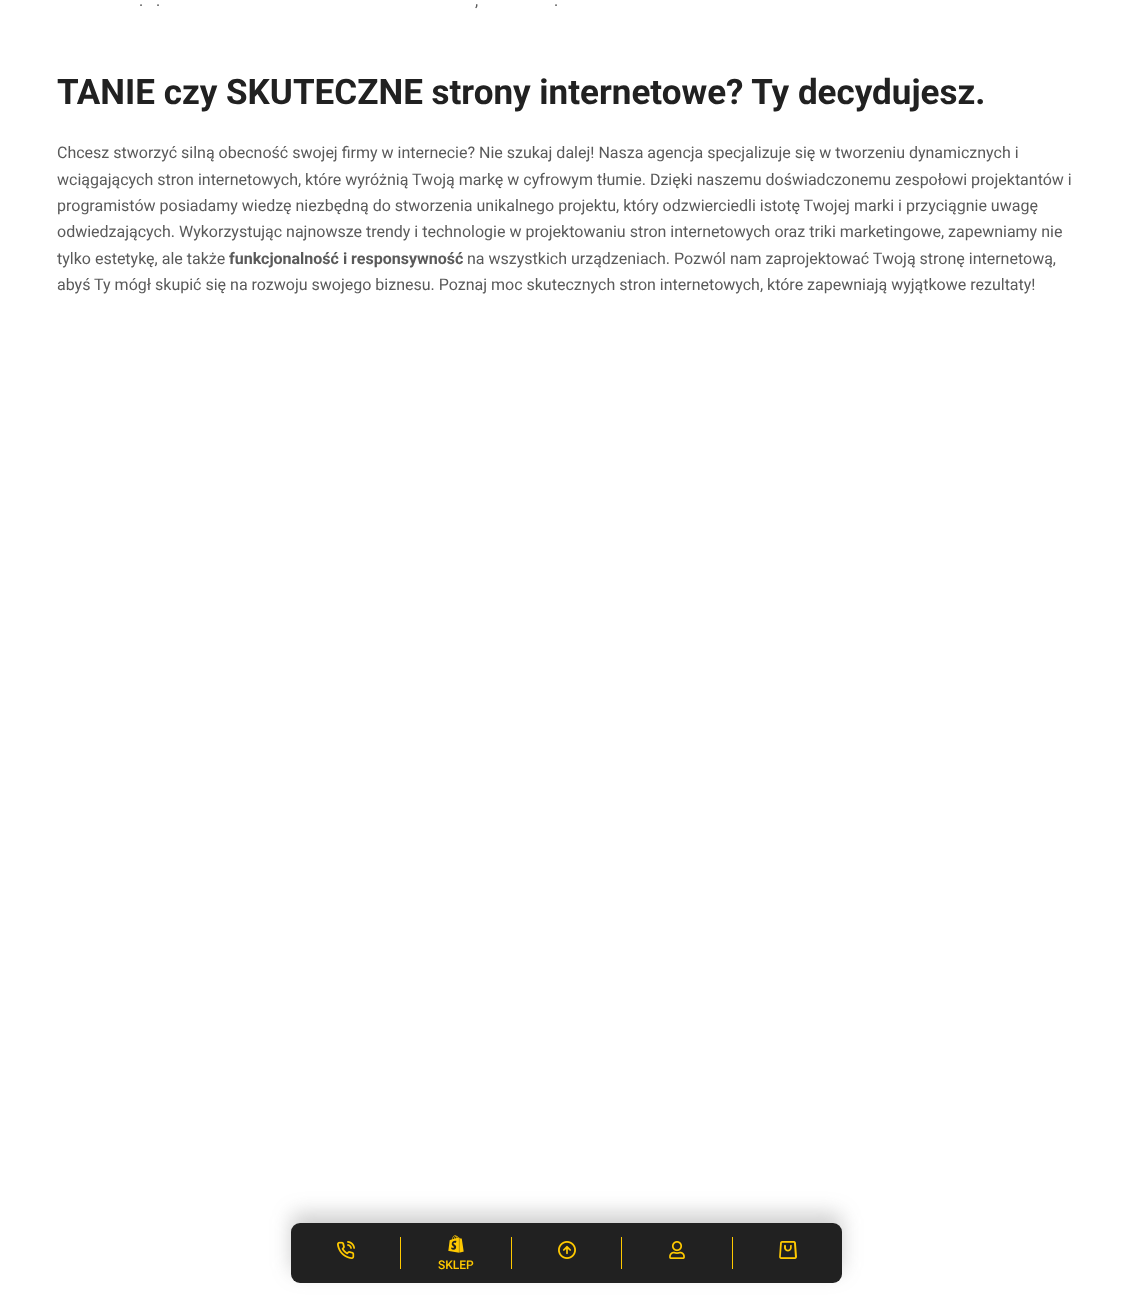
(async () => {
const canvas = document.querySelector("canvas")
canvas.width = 1133
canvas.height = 1298
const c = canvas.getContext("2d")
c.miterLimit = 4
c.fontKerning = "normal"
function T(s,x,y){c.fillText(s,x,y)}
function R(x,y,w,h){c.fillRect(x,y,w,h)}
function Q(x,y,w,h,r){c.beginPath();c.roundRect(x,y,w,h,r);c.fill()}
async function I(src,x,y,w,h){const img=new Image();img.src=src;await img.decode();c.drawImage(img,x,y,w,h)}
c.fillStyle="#fff"
R(0,0,1133,1298)
c.font="16px Roboto"
c.fillStyle="#5a5a5a"
T(".",139,6)
T(".",156,6)
T(",",475,6)
T(".",554,6)
c.font="bold 35px Roboto"
c.fillStyle="#212121"
T("TANIE czy SKUTECZNE strony internetowe? Ty decydujesz.",57,104)
c.font="16px Roboto"
c.fillStyle="#5a5a5a"
T("Chcesz stworzyć silną obecność swojej firmy w internecie? Nie szukaj dalej! Nasza agencja specjalizuje się w tworzeniu dynamicznych i",57,158)
T("wciągających stron internetowych, które wyróżnią Twoją markę w cyfrowym tłumie. Dzięki naszemu doświadczonemu zespołowi projektantów i",57,185)
T("programistów posiadamy wiedzę niezbędną do stworzenia unikalnego projektu, który odzwierciedli istotę Twojej marki i przyciągnie uwagę",57,211)
T("odwiedzających. Wykorzystując najnowsze trendy i technologie w projektowaniu stron internetowych oraz triki marketingowe, zapewniamy nie",57,237)
T("tylko estetykę, ale także",57,264)
c.font="bold 16px Roboto"
T("funkcjonalność i responsywność",229,264)
c.font="16px Roboto"
T("na wszystkich urządzeniach. Pozwól nam zaprojektować Twoją stronę internetową,",467,264)
T("abyś Ty mógł skupić się na rozwoju swojego biznesu. Poznaj moc skutecznych stron internetowych, które zapewniają wyjątkowe rezultaty!",57,290)
c.fillStyle="#5959594a"
c.filter="blur(10px)"
c.beginPath()
c.roundRect(291,1213,551,60,9)
c.fill()
c.filter="none"
c.fillStyle="#212121"
Q(291,1223,551,60,9)
await I("1.png",337,1241,18,18)
c.fillStyle="#ffc900"
R(400,1237,1,32)
await I("2.png",558,1241,18,18)
R(621,1237,1,32)
await I("3.png",669,1241,16,18)
R(732,1237,1,32)
await I("4.png",779,1241,18,18)
await I("5.png",448,1235,16,18)
c.font="500 12px Roboto"
T("SKLEP",438,1269)
R(511,1237,1,32)
})()
